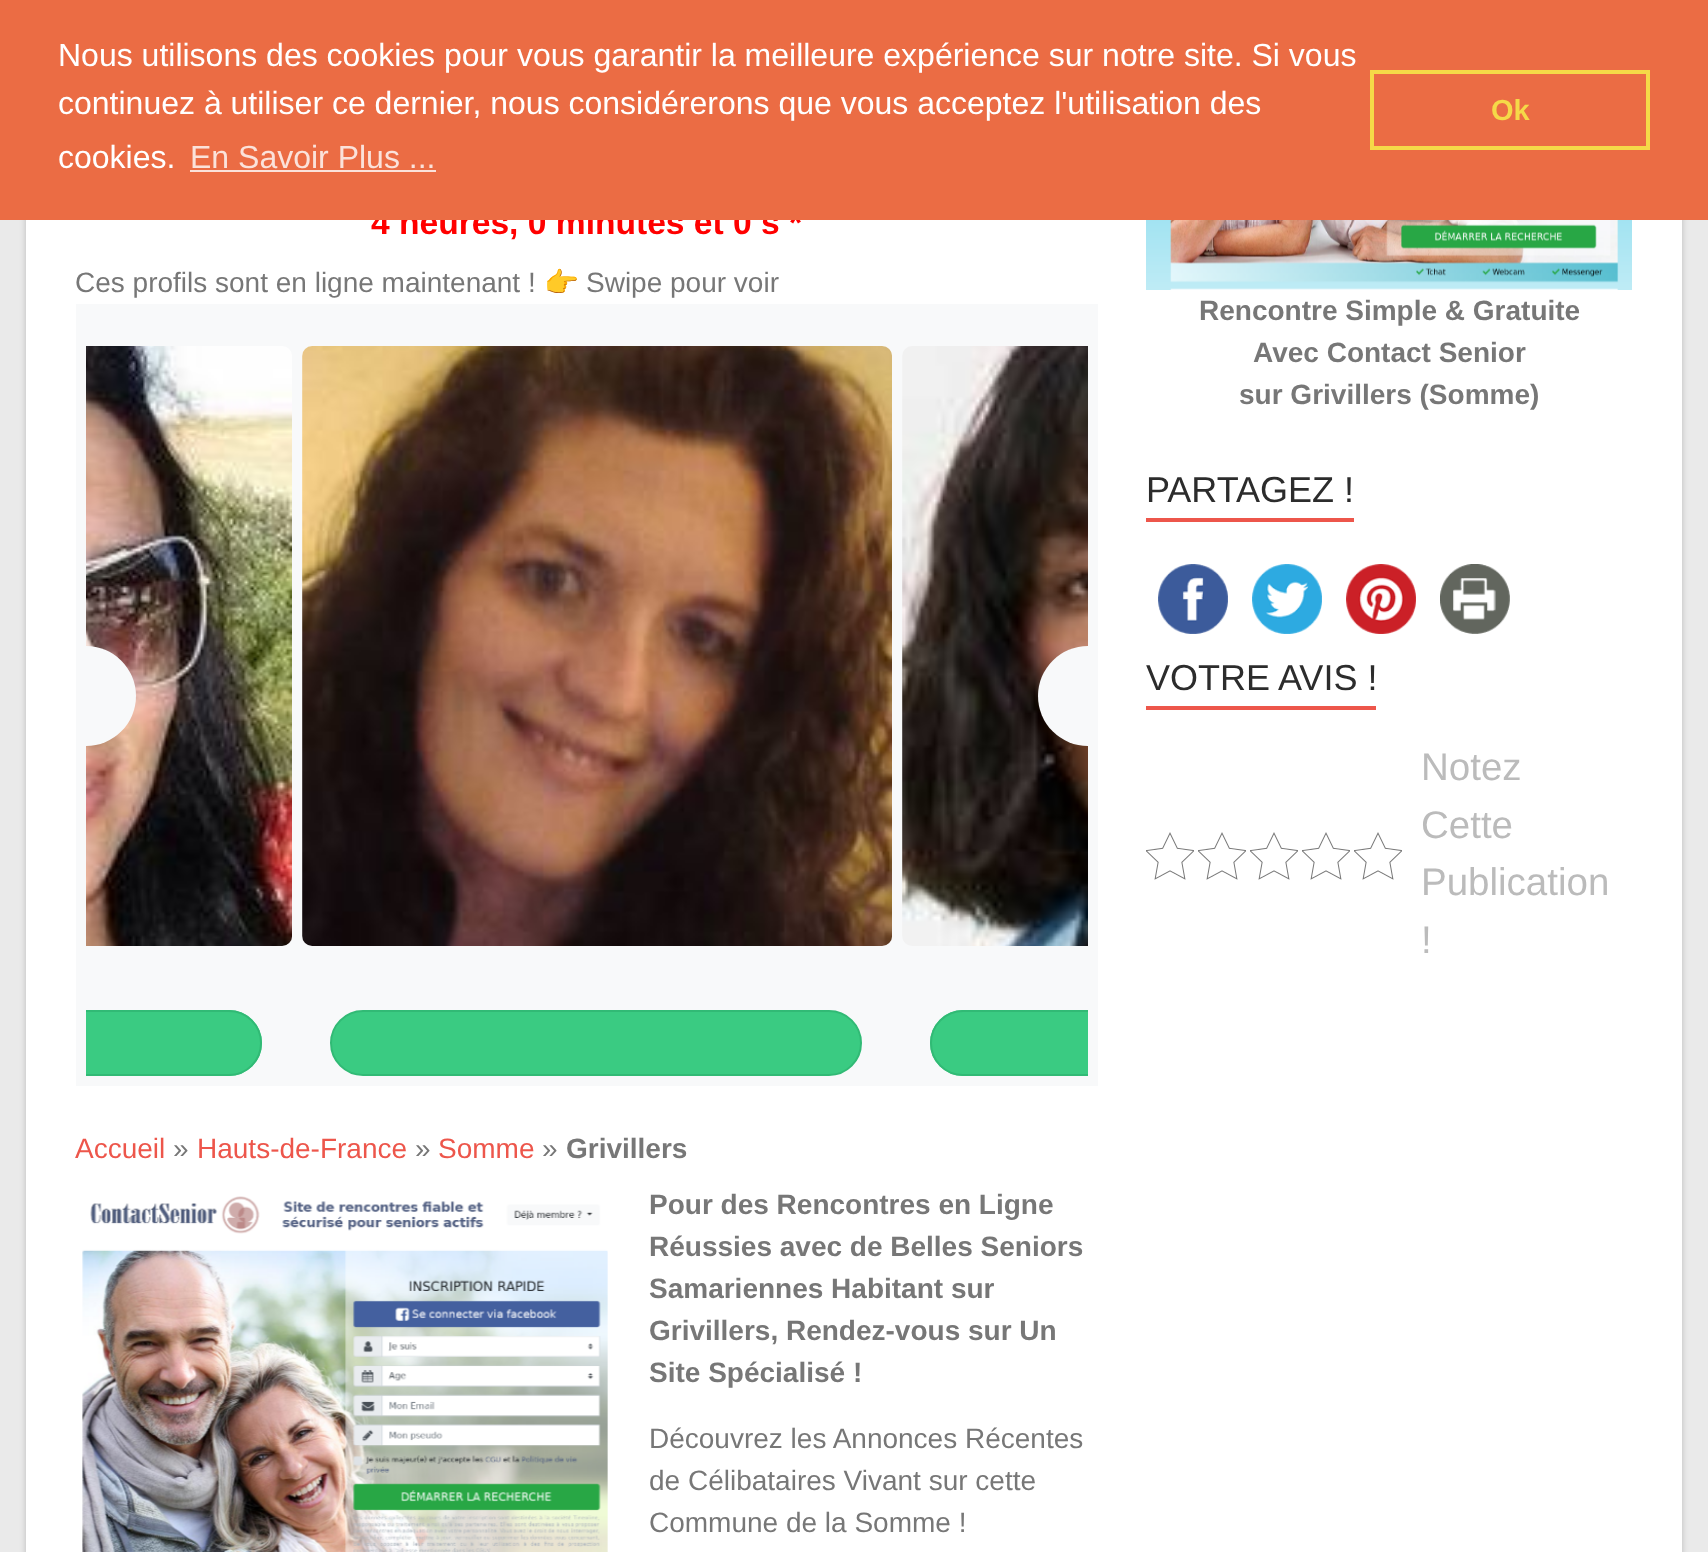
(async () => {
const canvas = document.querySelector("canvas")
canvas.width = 1708
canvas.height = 1552
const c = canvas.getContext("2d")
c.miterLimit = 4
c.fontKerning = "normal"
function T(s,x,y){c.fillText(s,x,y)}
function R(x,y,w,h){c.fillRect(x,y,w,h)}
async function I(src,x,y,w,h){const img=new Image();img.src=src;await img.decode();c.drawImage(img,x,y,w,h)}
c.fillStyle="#eaeaea"
R(0,0,1708,1552)
c.fillStyle="#00000033"
c.filter="blur(3px)"
c.beginPath()
c.rect(26,-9,1656,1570)
c.fill()
c.filter="none"
c.fillStyle="#fff"
R(26,220,1656,1332)
c.font="bold 33.6px Liberation Sans"
c.fillStyle="#f00"
T("4 heures, 0 minutes et 0 s *",371,234)
c.fillStyle="#eb6c44"
R(0,0,1708,220)
c.font="32px Liberation Sans"
c.fillStyle="#fff"
T("Nous utilisons des cookies pour vous garantir la meilleure expérience sur notre site. Si vous",58,66)
T("continuez à utiliser ce dernier, nous considérerons que vous acceptez l'utilisation des",58,114)
T("cookies.",58,168)
c.fillStyle="#fbe2da"
T("En Savoir Plus ...",190,168)
R(190,170,246,2)
c.strokeStyle="#f5d948"
c.lineWidth=4
c.strokeRect(1372,72,276,76)
c.font="bold 29px Liberation Sans"
c.fillStyle="#f5d948"
T("Ok",1491,120)
c.font="28px Liberation Sans"
c.fillStyle="#777"
T("Ces profils sont en ligne maintenant !",75,292)
c.font="28px Noto Color Emoji"
T("👉",544,292)
c.font="28px Liberation Sans"
T("Swipe pour voir",586,292)
c.fillStyle="#f8f9fa"
R(76,304,1022,782)
await I("1.png",86,346,206,600)
c.fillStyle="#3acb82"
c.beginPath()
c.roundRect(86,1010,176,66,[0,33,33,0])
c.fill()
c.save()
c.beginPath()
c.rect(86,314,1002,762)
c.clip()
c.beginPath()
c.roundRect(-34,1011,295,64,32)
c.strokeStyle="#31ba75"
c.lineWidth=2
c.stroke()
c.restore()
await I("2.png",302,346,590,600)
c.beginPath()
c.roundRect(331,1011,530,64,32)
c.fill()
c.strokeStyle="#31ba75"
c.lineWidth=2
c.stroke()
await I("3.png",902,346,186,600)
c.beginPath()
c.roundRect(930,1010,158,66,[33,0,0,33])
c.fill()
c.save()
c.beginPath()
c.rect(86,314,1002,762)
c.clip()
c.beginPath()
c.roundRect(931,1011,530,64,32)
c.stroke()
c.restore()
c.fillStyle="#f8f9fa"
c.beginPath()
c.roundRect(86,646,50,100,[0,50,50,0])
c.fill()
c.beginPath()
c.roundRect(1038,646,50,100,[50,0,0,50])
c.fill()
c.fillStyle="#ed564b"
T("Accueil",75,1158)
c.fillStyle="#777"
T("»",173,1158)
c.fillStyle="#ed564b"
T("Hauts-de-France",197,1158)
c.fillStyle="#777"
T("»",415,1158)
c.fillStyle="#ed564b"
T("Somme",438,1158)
c.fillStyle="#777"
T("»",542,1158)
c.font="bold 28px Liberation Sans"
T("Grivillers",566,1158)
await I("4.png",82,1196,526,356)
T("Pour des Rencontres en Ligne",649,1214)
T("Réussies avec de Belles Seniors",649,1256)
T("Samariennes Habitant sur",649,1298)
T("Grivillers, Rendez-vous sur Un",649,1340)
T("Site Spécialisé !",649,1382)
c.font="28px Liberation Sans"
T("Découvrez les Annonces Récentes",649,1448)
T("de Célibataires Vivant sur cette",649,1490)
T("Commune de la Somme !",649,1532)
await I("5.png",1146,220,486,70)
c.font="bold 28px Liberation Sans"
T("Rencontre Simple & Gratuite",1199,320)
T("Avec Contact Senior",1253,362)
T("sur Grivillers (Somme)",1239,404)
c.font="36px Liberation Sans"
c.fillStyle="#2c2c2c"
T("PARTAGEZ !",1146,502)
c.fillStyle="#ed564b"
R(1146,518,208,4)
await I("6.png",1158,564,70,70)
await I("7.png",1252,564,70,70)
await I("8.png",1346,564,70,70)
await I("9.png",1440,564,70,70)
c.fillStyle="#2c2c2c"
T("VOTRE AVIS !",1146,690)
c.fillStyle="#ed564b"
R(1146,706,230,4)
await I("10.png",1146,832,48,48)
await I("10.png",1198,832,48,48)
await I("10.png",1250,832,48,48)
await I("10.png",1302,832,48,48)
await I("10.png",1354,832,48,48)
c.font="38.5px Liberation Sans"
c.fillStyle="#bbb"
T("Notez",1421,780)
T("Cette",1421,838)
T("Publication",1421,895)
T("!",1421,953)
})()
